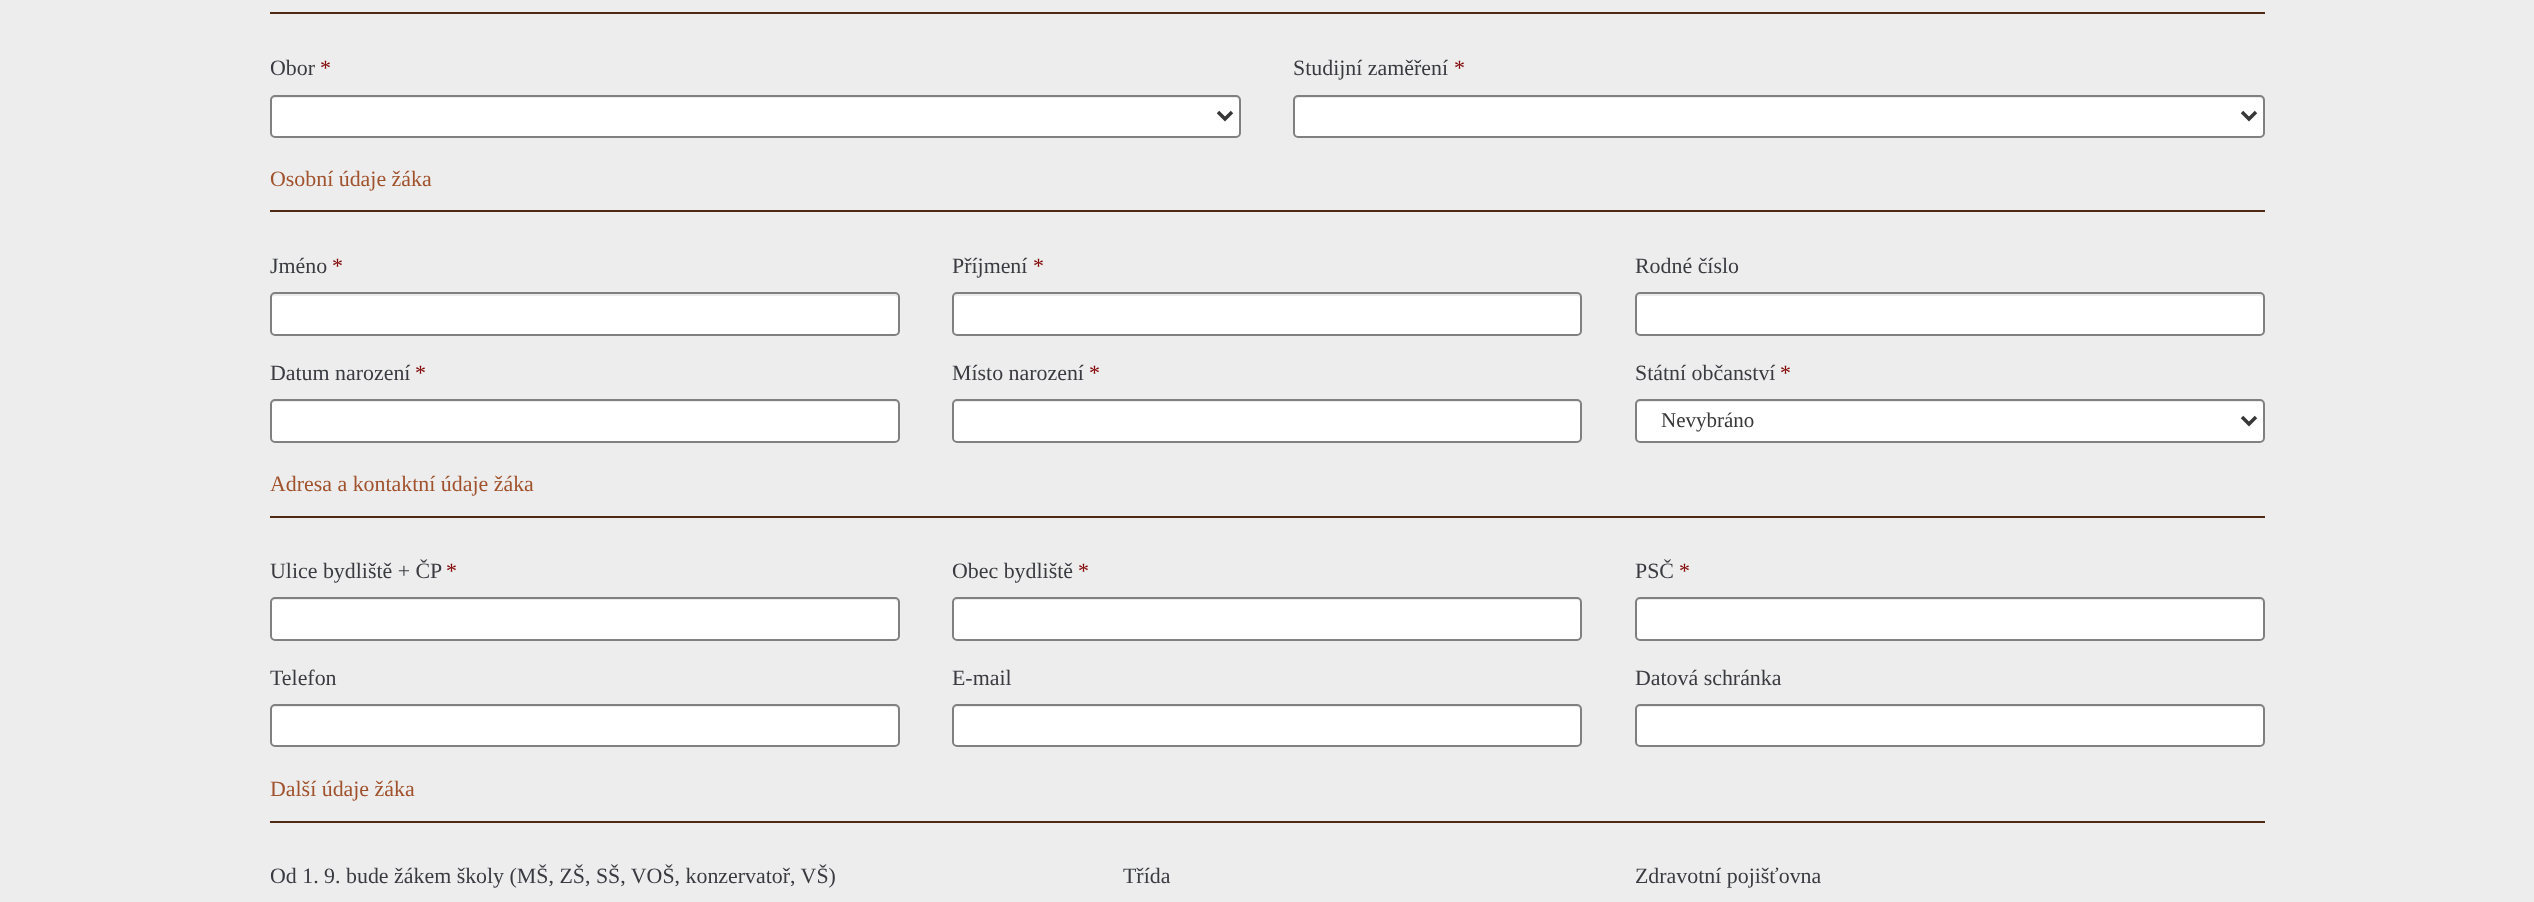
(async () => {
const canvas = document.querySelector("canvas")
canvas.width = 2534
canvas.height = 902
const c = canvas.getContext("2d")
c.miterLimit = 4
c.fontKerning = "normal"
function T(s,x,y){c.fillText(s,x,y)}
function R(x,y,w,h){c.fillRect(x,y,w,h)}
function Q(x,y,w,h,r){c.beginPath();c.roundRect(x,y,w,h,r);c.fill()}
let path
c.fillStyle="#ededed"
R(0,0,2534,902)
c.fillStyle="#4e2a14"
R(270,12,1995,2)
c.font="21.9px Liberation Serif"
c.fillStyle="#3a3b41"
T("Obor",270,75)
c.fillStyle="#800000"
T("*",320,75)
c.fillStyle="#fff"
Q(270,95,971,43,5)
c.fillStyle="#ececec"
path = new Path2D("M275 98h961c1 0 3 2 3 4v-2c0-2-2-4-4-4h-960c-2 0-4 2-4 4v2c0-2 2-4 4-4z")
c.fill(path)
c.beginPath()
c.roundRect(271,96,969,41,4)
c.strokeStyle="#808080"
c.lineWidth=2
c.stroke()
path = new Path2D("M1218 112l7 7l7-7")
c.strokeStyle="#383737"
c.lineWidth=3.5
c.stroke(path)
c.fillStyle="#3a3b41"
T("Studijní zaměření",1293,75)
c.fillStyle="#800000"
T("*",1454,75)
c.fillStyle="#fff"
Q(1293,95,972,43,5)
c.fillStyle="#ececec"
path = new Path2D("M1298 98h961c2 0 4 2 4 4v-2c0-2-2-4-4-4h-960c-2 0-4 2-4 4v2c0-2 2-4 3-4z")
c.fill(path)
c.beginPath()
c.roundRect(1294,96,970,41,4)
c.strokeStyle="#808080"
c.lineWidth=2
c.stroke()
path = new Path2D("M2242 112l7 7l7-7")
c.strokeStyle="#383737"
c.lineWidth=3.5
c.stroke(path)
c.fillStyle="#a0522d"
T("Osobní údaje žáka",270,186)
c.fillStyle="#4e2a14"
R(270,210,1995,2)
c.fillStyle="#3a3b41"
T("Jméno",270,273)
c.fillStyle="#800000"
T("*",332,273)
c.fillStyle="#fff"
Q(270,292,630,44,5)
c.fillStyle="#ececec"
path = new Path2D("M275 296h619c2 0 4 1 4 3c0-3-1-5-4-5h-619c-3 0-4 2-4 5c0-2 2-3 4-3z")
c.fill(path)
c.beginPath()
c.roundRect(271,293,628,42,4)
c.strokeStyle="#808080"
c.lineWidth=2
c.stroke()
c.fillStyle="#3a3b41"
T("Příjmení",952,273)
c.fillStyle="#800000"
T("*",1033,273)
c.fillStyle="#fff"
Q(952,292,630,44,5)
c.fillStyle="#ececec"
path = new Path2D("M957 296h620c2 0 3 1 3 3c0-3-1-5-4-5h-618c-3 0-4 2-4 5c0-2 1-3 3-3z")
c.fill(path)
c.beginPath()
c.roundRect(953,293,628,42,4)
c.stroke()
c.fillStyle="#3a3b41"
T("Rodné číslo",1635,273)
c.fillStyle="#fff"
Q(1635,292,630,44,5)
c.fillStyle="#ececec"
path = new Path2D("M1640 296h619c2 0 4 1 4 3c0-3-1-5-4-5h-619c-3 0-4 2-4 5c0-2 2-3 4-3z")
c.fill(path)
c.beginPath()
c.roundRect(1636,293,628,42,4)
c.stroke()
c.fillStyle="#3a3b41"
T("Datum narození",270,380)
c.fillStyle="#800000"
T("*",415,380)
c.fillStyle="#fff"
Q(270,399,630,44,5)
c.fillStyle="#ececec"
path = new Path2D("M275 402h619c2 0 4 2 4 4c0-3-1-5-4-5h-619c-3 0-4 2-4 5c0-2 2-4 4-4z")
c.fill(path)
c.beginPath()
c.roundRect(271,400,628,42,4)
c.stroke()
c.fillStyle="#3a3b41"
T("Místo narození",952,380)
c.fillStyle="#800000"
T("*",1089,380)
c.fillStyle="#fff"
Q(952,399,630,44,5)
c.fillStyle="#ececec"
path = new Path2D("M957 402h620c2 0 3 2 3 4c0-3-1-5-4-5h-618c-3 0-4 2-4 5c0-2 1-4 3-4z")
c.fill(path)
c.beginPath()
c.roundRect(953,400,628,42,4)
c.stroke()
c.fillStyle="#3a3b41"
T("Státní občanství",1635,380)
c.fillStyle="#800000"
T("*",1780,380)
c.fillStyle="#fff"
Q(1635,399,630,44,5)
c.fillStyle="#ececec"
path = new Path2D("M1640 402h619c2 0 4 2 4 4c0-3-1-5-4-5h-619c-3 0-4 2-4 5c0-2 2-4 4-4z")
c.fill(path)
c.beginPath()
c.roundRect(1636,400,628,42,4)
c.stroke()
path = new Path2D("M2242 417l7 7l7-7")
c.strokeStyle="#383737"
c.lineWidth=3.5
c.stroke(path)
c.font="21px Liberation Serif"
c.fillStyle="#383737"
T("Nevybráno",1661,427)
c.font="21.9px Liberation Serif"
c.fillStyle="#a0522d"
T("Adresa a kontaktní údaje žáka",270,491)
c.fillStyle="#4e2a14"
R(270,516,1995,2)
c.fillStyle="#3a3b41"
T("Ulice bydliště + ČP",270,578)
c.fillStyle="#800000"
T("*",446,578)
c.fillStyle="#fff"
Q(270,597,630,44,5)
c.fillStyle="#ececec"
path = new Path2D("M275 600h619c2 0 4 2 4 4c0-3-1-5-4-5h-619c-3 0-4 2-4 5c0-2 2-4 4-4z")
c.fill(path)
c.beginPath()
c.roundRect(271,598,628,42,4)
c.strokeStyle="#808080"
c.lineWidth=2
c.stroke()
c.fillStyle="#3a3b41"
T("Obec bydliště",952,578)
c.fillStyle="#800000"
T("*",1078,578)
c.fillStyle="#fff"
Q(952,597,630,44,5)
c.fillStyle="#ececec"
path = new Path2D("M957 600h620c2 0 3 2 3 4c0-3-1-5-4-5h-618c-3 0-4 2-4 5c0-2 1-4 3-4z")
c.fill(path)
c.beginPath()
c.roundRect(953,598,628,42,4)
c.stroke()
c.fillStyle="#3a3b41"
T("PSČ",1635,578)
c.fillStyle="#800000"
T("*",1679,578)
c.fillStyle="#fff"
Q(1635,597,630,44,5)
c.fillStyle="#ececec"
path = new Path2D("M1640 600h619c2 0 4 2 4 4c0-3-1-5-4-5h-619c-3 0-4 2-4 5c0-2 2-4 4-4z")
c.fill(path)
c.beginPath()
c.roundRect(1636,598,628,42,4)
c.stroke()
c.fillStyle="#3a3b41"
T("Telefon",270,685)
c.fillStyle="#fff"
Q(270,704,630,43,5)
c.fillStyle="#ececec"
path = new Path2D("M275 707h619c2 0 4 2 4 3c0-3-1-5-4-5h-619c-3 0-4 2-4 5c0-1 2-3 4-3z")
c.fill(path)
c.beginPath()
c.roundRect(271,705,628,41,4)
c.stroke()
c.fillStyle="#3a3b41"
T("E-mail",952,685)
c.fillStyle="#fff"
Q(952,704,630,43,5)
c.fillStyle="#ececec"
path = new Path2D("M957 707h620c2 0 3 2 3 3c0-3-1-5-4-5h-618c-3 0-4 2-4 5c0-1 1-3 3-3z")
c.fill(path)
c.beginPath()
c.roundRect(953,705,628,41,4)
c.stroke()
c.fillStyle="#3a3b41"
T("Datová schránka",1635,685)
c.fillStyle="#fff"
Q(1635,704,630,43,5)
c.fillStyle="#ececec"
path = new Path2D("M1640 707h619c2 0 4 2 4 3c0-3-1-5-4-5h-619c-3 0-4 2-4 5c0-1 2-3 4-3z")
c.fill(path)
c.beginPath()
c.roundRect(1636,705,628,41,4)
c.stroke()
c.fillStyle="#a0522d"
T("Další údaje žáka",270,796)
c.fillStyle="#4e2a14"
R(270,821,1995,2)
c.fillStyle="#3a3b41"
T("Od 1. 9. bude žákem školy (MŠ, ZŠ, SŠ, VOŠ, konzervatoř, VŠ)",270,883)
T("Třída",1123,883)
T("Zdravotní pojišťovna",1635,883)
})()
